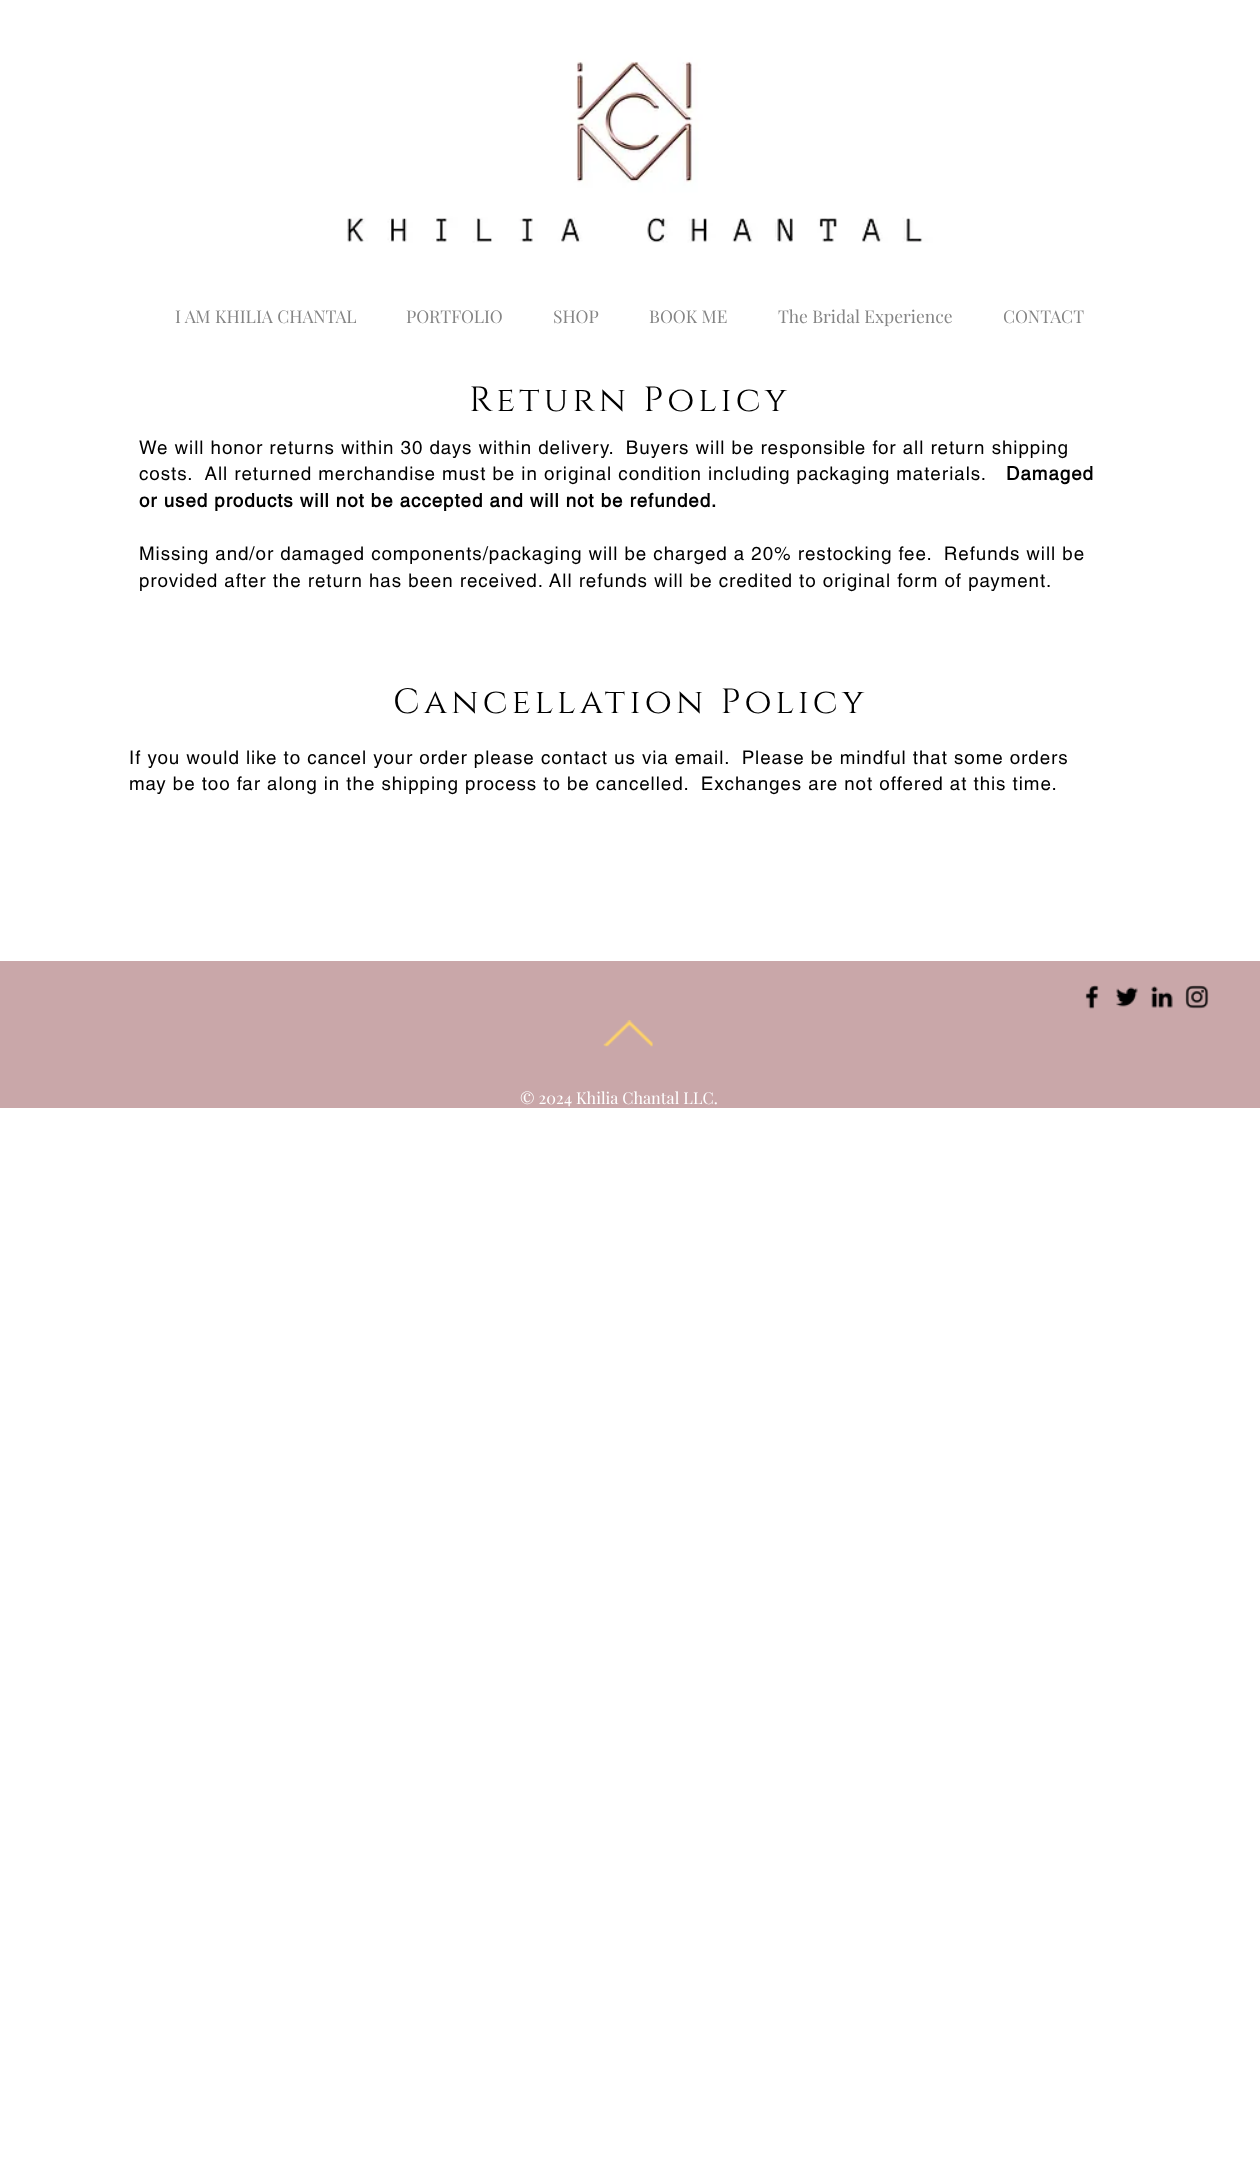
(async () => {
const canvas = document.querySelector("canvas")
canvas.width = 1260
canvas.height = 2174
const c = canvas.getContext("2d")
c.miterLimit = 4
c.fontKerning = "normal"
function T(s,x,y){c.fillText(s,x,y)}
function R(x,y,w,h){c.fillRect(x,y,w,h)}
async function I(src,x,y,w,h){const img=new Image();img.src=src;await img.decode();c.drawImage(img,x,y,w,h)}
c.fillStyle="#fff"
R(0,0,1260,2174)
await I("1.png",347,23,879,220)
c.font="17.5px Playfair Display"
c.fillStyle="#858585"
T("I AM KHILIA CHANTAL",175,323)
T("PORTFOLIO",406,323)
T("SHOP",553,323)
T("BOOK ME",649,323)
T("The Bridal Experience",778,323)
T("CONTACT",1003,323)
c.letterSpacing="4.25px"
c.font="35px Cinzel"
c.fillStyle="#000"
T("Return Policy",469,411)
c.letterSpacing="0.94px"
c.font="18.75px helvetica"
T("We will honor returns within 30 days within delivery.  Buyers will be responsible for all return shipping",139,454)
T("costs.  All returned merchandise must be in original condition including packaging materials.",139,480)
c.font="bold 18.75px helvetica"
T("Damaged",1006,480)
T("or used products will not be accepted and will not be refunded.",139,507)
c.font="18.75px helvetica"
T("Missing and/or damaged components/packaging will be charged a 20% restocking fee.  Refunds will be",139,560)
T("provided after the return has been received. All refunds will be credited to original form of payment.",139,587)
c.letterSpacing="4.25px"
c.font="35px Cinzel"
T("Cancellation Policy",393,713)
c.letterSpacing="0.94px"
c.font="18.75px helvetica"
T("If you would like to cancel your order please contact us via email.  Please be mindful that some orders",129,764)
T("may be too far along in the shipping process to be cancelled.  Exchanges are not offered at this time.",129,790)
c.fillStyle="#c9a7a9"
R(0,961,1260,147)
await I("2.png",1085,985,14,24)
await I("3.png",1116,987,22,20)
await I("4.png",1151,986,22,22)
await I("5.png",1185,985,24,24)
await I("6.png",603,1020,50,27)
c.letterSpacing="0px"
c.font="16.25px Playfair Display"
c.fillStyle="#fff"
T("© 2024 Khilia Chantal LLC.",520,1104)
})()
